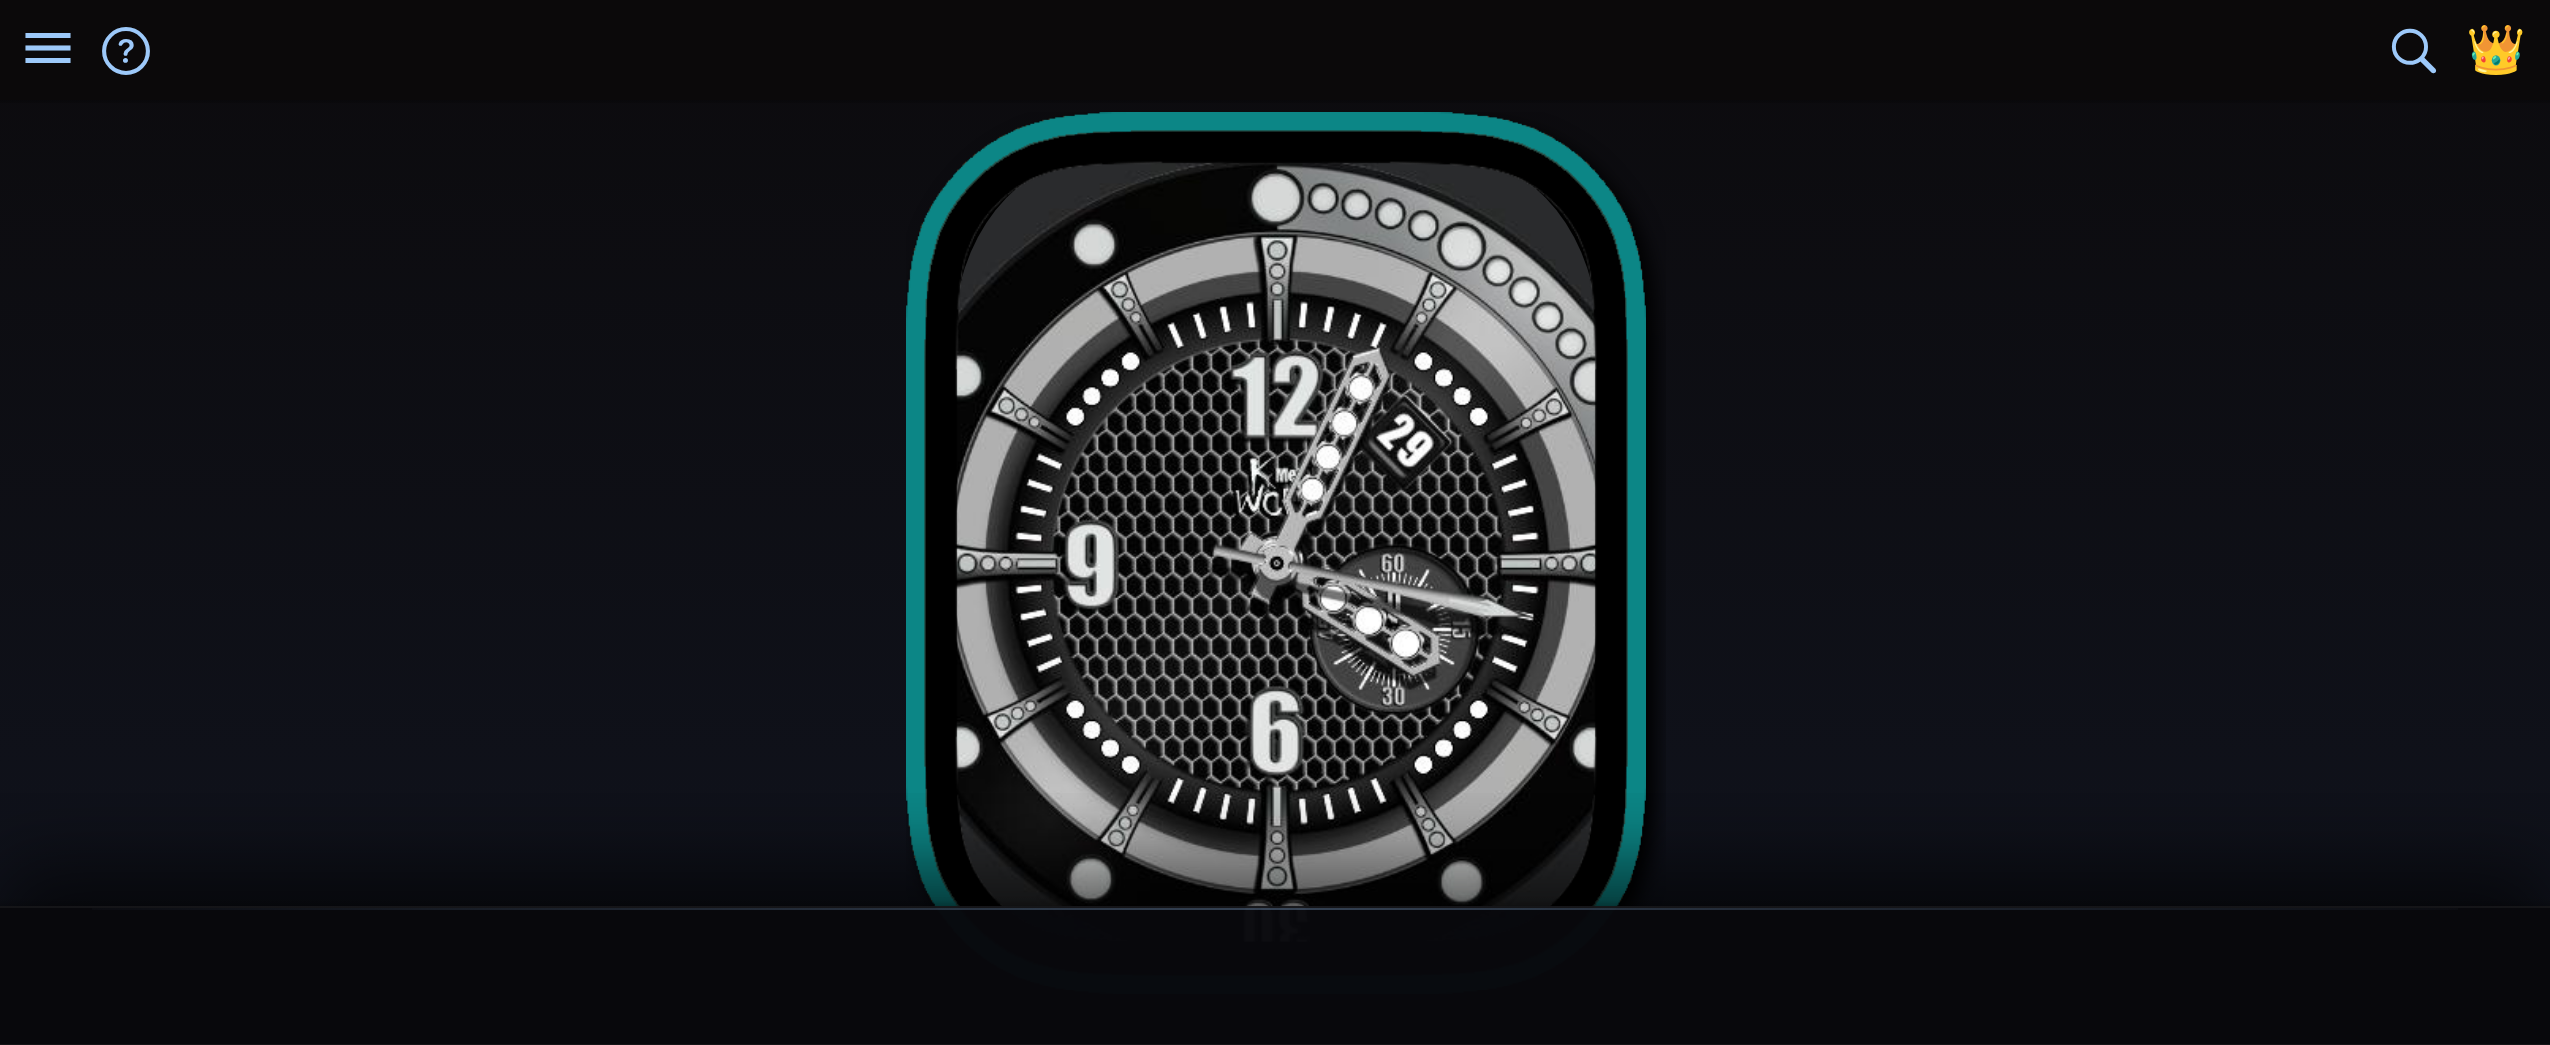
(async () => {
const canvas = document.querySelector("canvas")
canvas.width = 2550
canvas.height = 1045
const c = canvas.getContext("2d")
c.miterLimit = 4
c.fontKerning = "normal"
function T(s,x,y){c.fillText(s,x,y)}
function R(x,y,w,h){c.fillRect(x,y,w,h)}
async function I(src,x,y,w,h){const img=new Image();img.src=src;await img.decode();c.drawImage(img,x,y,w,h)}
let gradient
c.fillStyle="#fff"
R(0,0,2550,1045)
c.fillStyle="#0b090a"
R(0,0,2550,100)
gradient = c.createLinearGradient(1275,-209,1275,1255)
gradient.addColorStop(0,"#0b090a")
gradient.addColorStop(1,"#111521")
c.fillStyle = gradient
R(0,100,2550,944)
gradient = c.createLinearGradient(1275,100,1275,116)
gradient.addColorStop(0,"#00000040")
gradient.addColorStop(.4,"#00000014")
gradient.addColorStop(.5,"#0000000a")
gradient.addColorStop(.9,"#00000000")
gradient.addColorStop(1,"#00000000")
c.fillStyle = gradient
R(0,100,2550,3)
c.font="60px 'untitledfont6'"
c.fillStyle="#9dc9fa"
T("W",18,78)
c.font="56px 'untitledfont6'"
T("k",98,79)
T("c",2386,79)
c.font="48px Noto Color Emoji"
T("👑",2466,66)
await I("1.png",906,112,760,903)
await I("3.png",955,161,642,783)
await I("2.png",906,112,740,882)
c.save()
c.beginPath()
c.rect(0,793,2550,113)
c.clip()
c.fillStyle="#00000099"
c.filter="blur(40px)"
c.beginPath()
c.rect(0,866,2550,140)
c.fill()
c.filter="none"
c.restore()
c.fillStyle="#08080cfa"
R(0,906,2550,138)
c.fillStyle="#151518"
R(0,1044,2550,1)
c.fillStyle="#ffffff14"
R(0,906,2550,2)
gradient = c.createLinearGradient(1275,908,1275,892)
gradient.addColorStop(0,"#00000040")
gradient.addColorStop(.4,"#00000014")
gradient.addColorStop(.5,"#0000000a")
gradient.addColorStop(.9,"#00000000")
gradient.addColorStop(1,"#00000000")
c.fillStyle = gradient
R(0,897,2550,11)
gradient = c.createLinearGradient(0,909,2550,909)
gradient.addColorStop(0,"#9dc9fa00")
gradient.addColorStop(.5,"#9dc9fa4d")
gradient.addColorStop(1,"#9dc9fa00")
c.fillStyle = gradient
R(92,908,2366,2)
})()
